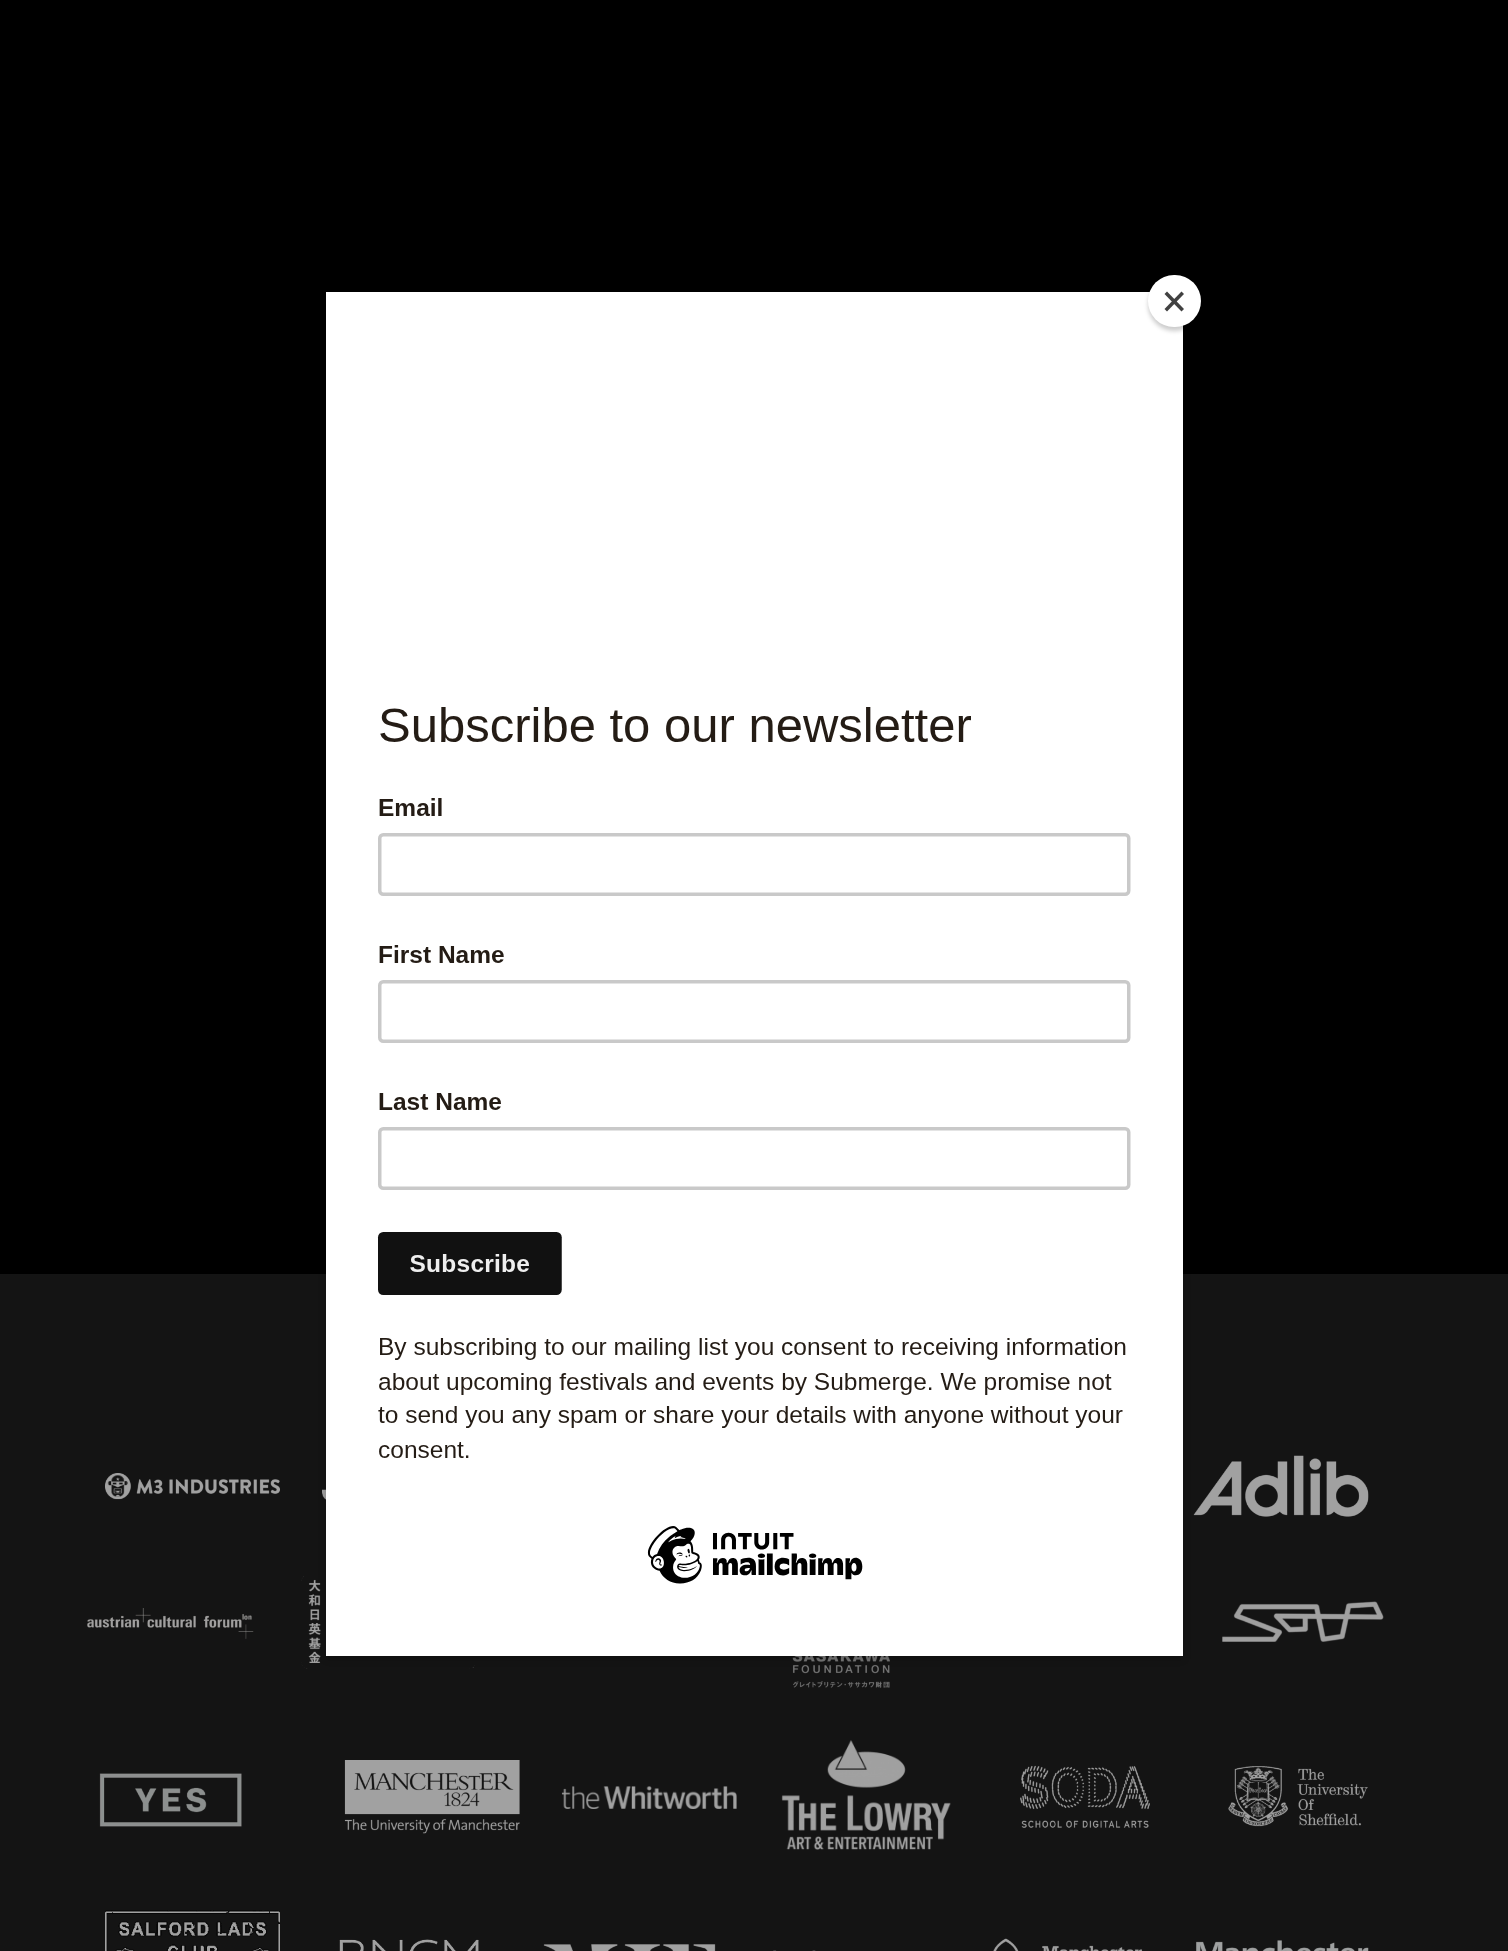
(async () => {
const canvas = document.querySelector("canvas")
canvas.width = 1508
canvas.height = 1951
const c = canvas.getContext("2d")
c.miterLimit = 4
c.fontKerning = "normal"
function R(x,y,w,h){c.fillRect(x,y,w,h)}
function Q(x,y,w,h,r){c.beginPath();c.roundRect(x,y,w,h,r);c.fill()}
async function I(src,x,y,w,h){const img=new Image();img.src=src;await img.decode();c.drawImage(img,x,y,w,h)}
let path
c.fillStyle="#000"
R(0,0,1508,1951)
c.fillStyle="#141414"
R(0,1274,1508,677)
await I("3.png",322,1489,4,11)
await I("4.png",1193,1455,176,62)
await I("6.png",301,1576,174,93)
await I("8.png",792,1656,98,32)
c.fillStyle="#00000033"
c.filter="blur(3.5px)"
c.beginPath()
c.rect(326,296,857,1363)
c.fill()
c.filter="none"
await I("1.png",326,292,857,1364)
c.filter="blur(2px)"
c.beginPath()
c.roundRect(1148,278,53,53,26.5)
c.fill()
c.filter="none"
c.fillStyle="#fff"
Q(1148,275,53,52,26)
c.fillStyle="#414141"
path = new Path2D("M1181.5 291.5l2.5 2.5l-17 17.5l-2.5-2.5z")
c.fill(path)
path = new Path2D("M1164.5 294l2.5-2.5l17 17.5l-2.5 2.5z")
c.fill(path)
await I("2.png",105,1473,175,27)
await I("5.png",87,1608,167,31)
await I("7.png",1222,1601,162,41)
await I("9.png",99,1773,143,54)
await I("10.png",344,1760,176,74)
await I("11.png",561,1786,176,23)
await I("12.png",781,1740,170,110)
await I("13.png",1020,1765,130,63)
await I("14.png",1228,1766,140,61)
await I("15.png",105,1910,175,41)
await I("16.png",339,1939,140,12)
await I("17.png",543,1944,173,7)
await I("18.png",773,1950,43,1)
await I("19.png",993,1938,150,13)
await I("20.png",1196,1940,173,11)
})()
